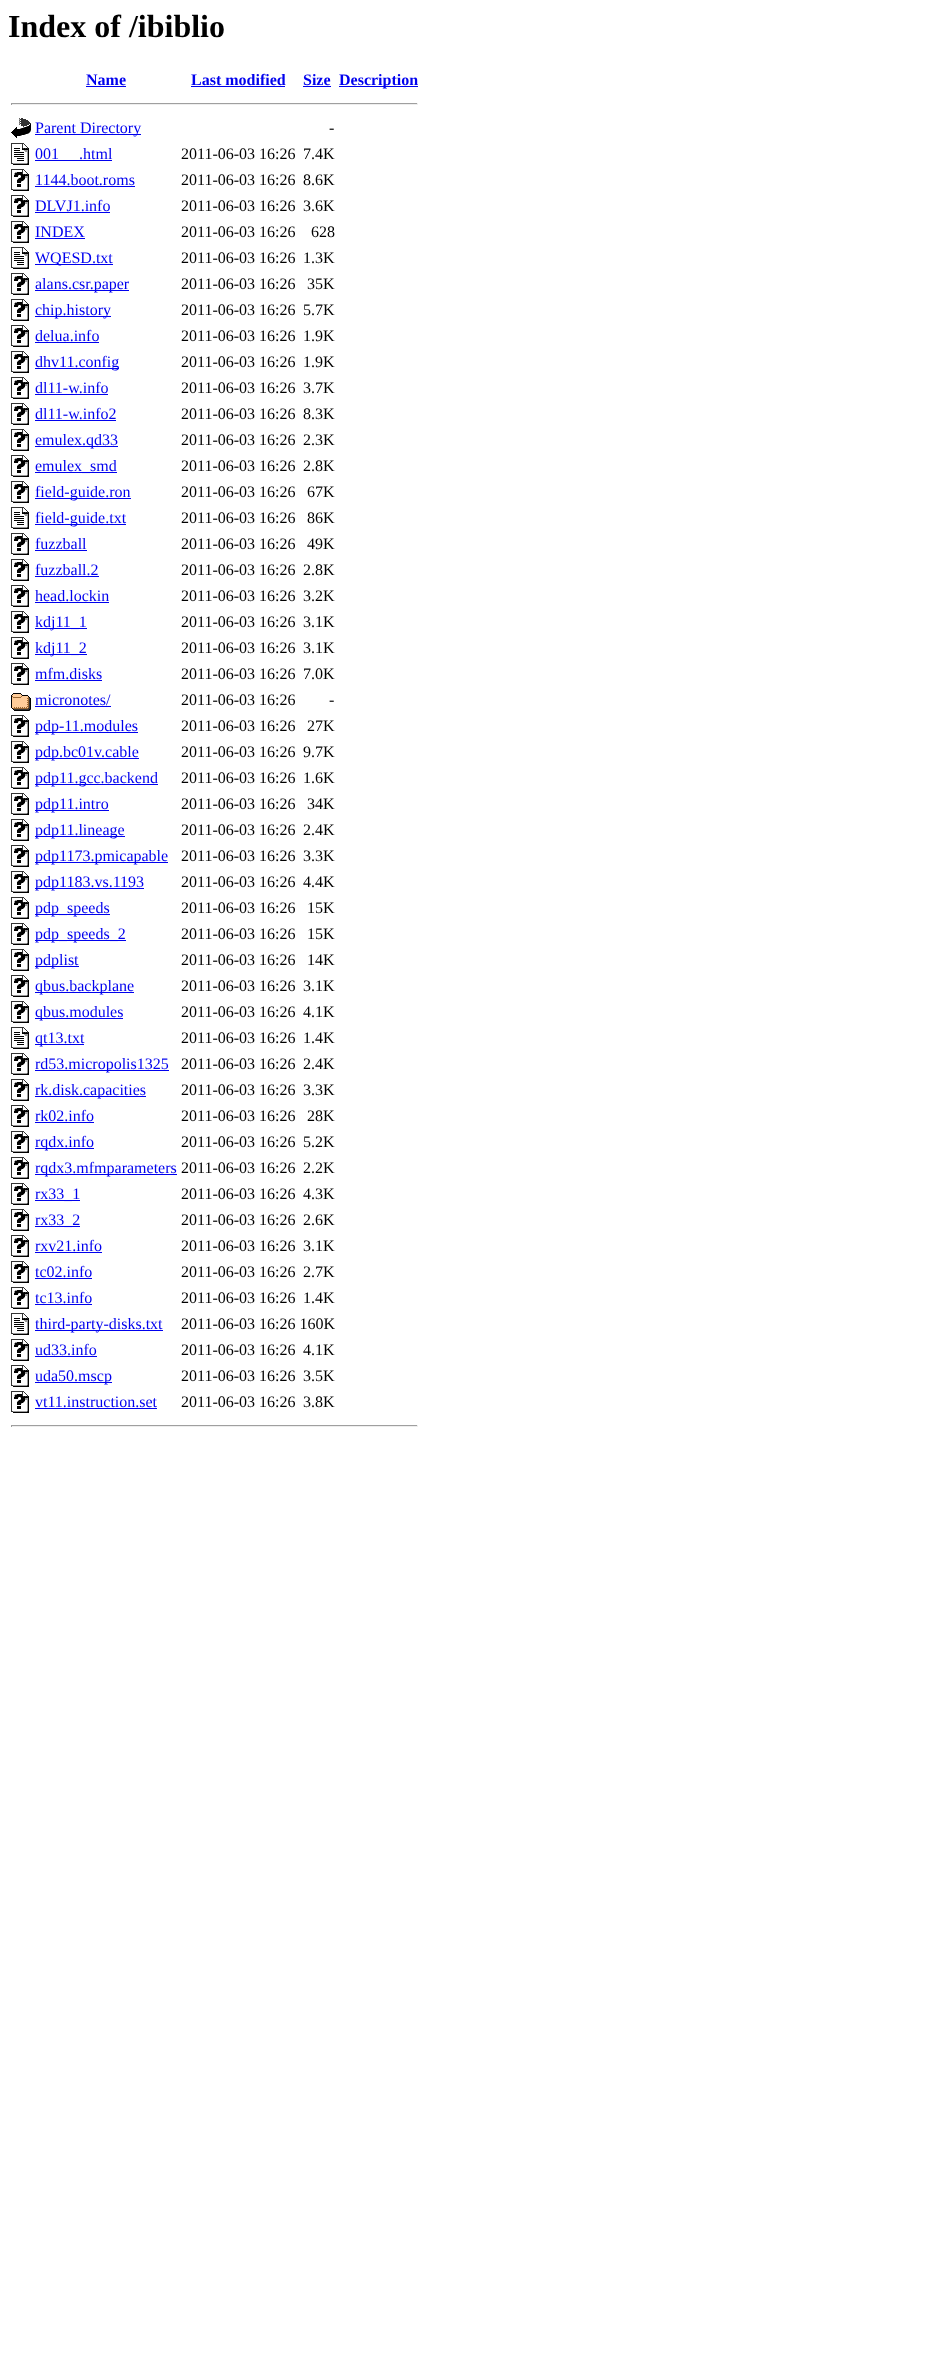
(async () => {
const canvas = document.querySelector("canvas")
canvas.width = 925
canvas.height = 2367
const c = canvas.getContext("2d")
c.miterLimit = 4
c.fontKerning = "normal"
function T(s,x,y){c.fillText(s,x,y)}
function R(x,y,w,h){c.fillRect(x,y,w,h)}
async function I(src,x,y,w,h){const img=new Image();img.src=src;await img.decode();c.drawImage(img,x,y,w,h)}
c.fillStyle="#fff"
R(0,0,925,2367)
c.font="bold 32px Liberation Serif"
c.fillStyle="#000"
T("Index of /ibiblio",8,37)
c.font="bold 16px Liberation Serif"
c.fillStyle="#00e"
T("Name",86,85)
R(86,86,40,1)
T("Last modified",191,85)
R(191,86,94,1)
T("Size",303,85)
R(303,86,28,1)
R(339,86,79,1)
T("Description",339,85)
c.fillStyle="#9f9f9f"
R(11,103,407,1)
c.fillStyle="#eee"
R(417,103,1,2)
R(11,104,407,1)
c.fillStyle="#9f9f9f"
R(11,103,1,2)
await I("1.png",11,118,20,20)
c.fillStyle="#00e"
R(35,134,106,1)
c.font="16px Liberation Serif"
T("Parent Directory",35,133)
c.fillStyle="#000"
T("-",329,133)
await I("2.png",11,143,18,22)
c.fillStyle="#00e"
T("001",35,159)
R(35,160,77,1)
T(".html",79,159)
c.fillStyle="#000"
T("2011-06-03 16:26",181,159)
T("7.4K",303,159)
await I("3.png",11,169,18,22)
c.fillStyle="#00e"
T("1144.boot.roms",35,185)
R(35,186,100,1)
c.fillStyle="#000"
T("2011-06-03 16:26",181,185)
T("8.6K",303,185)
await I("3.png",11,195,18,22)
c.fillStyle="#00e"
T("DLVJ1.info",35,211)
R(35,212,75,1)
c.fillStyle="#000"
T("2011-06-03 16:26",181,211)
T("3.6K",303,211)
await I("3.png",11,221,18,22)
c.fillStyle="#00e"
T("INDEX",35,237)
R(35,238,50,1)
c.fillStyle="#000"
T("2011-06-03 16:26",181,237)
T("628",311,237)
await I("2.png",11,247,18,22)
c.fillStyle="#00e"
R(35,264,78,1)
T("WQESD.txt",35,263)
c.fillStyle="#000"
T("2011-06-03 16:26",181,263)
T("1.3K",303,263)
await I("3.png",11,273,18,22)
c.fillStyle="#00e"
R(35,290,94,1)
T("alans.csr.paper",35,289)
c.fillStyle="#000"
T("2011-06-03 16:26",181,289)
T("35K",307,289)
await I("3.png",11,299,18,22)
c.fillStyle="#00e"
R(35,316,76,1)
T("chip.history",35,315)
c.fillStyle="#000"
T("2011-06-03 16:26",181,315)
T("5.7K",303,315)
await I("3.png",11,325,18,22)
c.fillStyle="#00e"
T("delua.info",35,341)
R(35,342,64,1)
c.fillStyle="#000"
T("2011-06-03 16:26",181,341)
T("1.9K",303,341)
await I("3.png",11,351,18,22)
c.fillStyle="#00e"
R(35,368,84,1)
T("dhv11.config",35,367)
c.fillStyle="#000"
T("2011-06-03 16:26",181,367)
T("1.9K",303,367)
await I("3.png",11,377,18,22)
c.fillStyle="#00e"
T("dl11-w.info",35,393)
R(35,394,73,1)
c.fillStyle="#000"
T("2011-06-03 16:26",181,393)
T("3.7K",303,393)
await I("3.png",11,403,18,22)
c.fillStyle="#00e"
T("dl11-w.info2",35,419)
R(35,420,81,1)
c.fillStyle="#000"
T("2011-06-03 16:26",181,419)
T("8.3K",303,419)
await I("3.png",11,429,18,22)
c.fillStyle="#00e"
R(35,446,83,1)
T("emulex.qd33",35,445)
c.fillStyle="#000"
T("2011-06-03 16:26",181,445)
T("2.3K",303,445)
await I("3.png",11,455,18,22)
c.fillStyle="#00e"
R(35,472,82,1)
T("emulex_smd",35,471)
c.fillStyle="#000"
T("2011-06-03 16:26",181,471)
T("2.8K",303,471)
await I("3.png",11,481,18,22)
c.fillStyle="#00e"
R(35,498,96,1)
T("field-guide.ron",35,497)
c.fillStyle="#000"
T("2011-06-03 16:26",181,497)
T("67K",307,497)
await I("2.png",11,507,18,22)
c.fillStyle="#00e"
R(35,524,91,1)
T("field-guide.txt",35,523)
c.fillStyle="#000"
T("2011-06-03 16:26",181,523)
T("86K",307,523)
await I("3.png",11,533,18,22)
c.fillStyle="#00e"
T("fuzzball",35,549)
R(35,550,52,1)
c.fillStyle="#000"
T("2011-06-03 16:26",181,549)
T("49K",307,549)
await I("3.png",11,559,18,22)
c.fillStyle="#00e"
T("fuzzball.2",35,575)
R(35,576,64,1)
c.fillStyle="#000"
T("2011-06-03 16:26",181,575)
T("2.8K",303,575)
await I("3.png",11,585,18,22)
c.fillStyle="#00e"
T("head.lockin",35,601)
R(35,602,74,1)
c.fillStyle="#000"
T("2011-06-03 16:26",181,601)
T("3.2K",303,601)
await I("3.png",11,611,18,22)
c.fillStyle="#00e"
R(35,628,52,1)
T("kdj11_1",35,627)
c.fillStyle="#000"
T("2011-06-03 16:26",181,627)
T("3.1K",303,627)
await I("3.png",11,637,18,22)
c.fillStyle="#00e"
R(35,654,52,1)
T("kdj11_2",35,653)
c.fillStyle="#000"
T("2011-06-03 16:26",181,653)
T("3.1K",303,653)
await I("3.png",11,663,18,22)
c.fillStyle="#00e"
T("mfm.disks",35,679)
R(35,680,67,1)
c.fillStyle="#000"
T("2011-06-03 16:26",181,679)
T("7.0K",303,679)
await I("4.png",11,693,20,18)
c.fillStyle="#00e"
T("micronotes/",35,705)
R(35,706,76,1)
c.fillStyle="#000"
T("2011-06-03 16:26",181,705)
T("-",329,705)
await I("3.png",11,715,18,22)
c.fillStyle="#00e"
R(35,732,103,1)
T("pdp-11.modules",35,731)
c.fillStyle="#000"
T("2011-06-03 16:26",181,731)
T("27K",307,731)
await I("3.png",11,741,18,22)
c.fillStyle="#00e"
R(35,758,104,1)
T("pdp.bc01v.cable",35,757)
c.fillStyle="#000"
T("2011-06-03 16:26",181,757)
T("9.7K",303,757)
await I("3.png",11,767,18,22)
c.fillStyle="#00e"
R(35,784,123,1)
T("pdp11.gcc.backend",35,783)
c.fillStyle="#000"
T("2011-06-03 16:26",181,783)
T("1.6K",303,783)
await I("3.png",11,793,18,22)
c.fillStyle="#00e"
R(35,810,74,1)
T("pdp11.intro",35,809)
c.fillStyle="#000"
T("2011-06-03 16:26",181,809)
T("34K",307,809)
await I("3.png",11,819,18,22)
c.fillStyle="#00e"
R(35,836,90,1)
T("pdp11.lineage",35,835)
c.fillStyle="#000"
T("2011-06-03 16:26",181,835)
T("2.4K",303,835)
await I("3.png",11,845,18,22)
c.fillStyle="#00e"
R(35,862,133,1)
T("pdp1173.pmicapable",35,861)
c.fillStyle="#000"
T("2011-06-03 16:26",181,861)
T("3.3K",303,861)
await I("3.png",11,871,18,22)
c.fillStyle="#00e"
R(35,888,109,1)
T("pdp1183.vs.1193",35,887)
c.fillStyle="#000"
T("2011-06-03 16:26",181,887)
T("4.4K",303,887)
await I("3.png",11,897,18,22)
c.fillStyle="#00e"
R(35,914,75,1)
T("pdp_speeds",35,913)
c.fillStyle="#000"
T("2011-06-03 16:26",181,913)
T("15K",307,913)
await I("3.png",11,923,18,22)
c.fillStyle="#00e"
R(35,940,91,1)
T("pdp_speeds_2",35,939)
c.fillStyle="#000"
T("2011-06-03 16:26",181,939)
T("15K",307,939)
await I("3.png",11,949,18,22)
c.fillStyle="#00e"
R(35,966,44,1)
T("pdplist",35,965)
c.fillStyle="#000"
T("2011-06-03 16:26",181,965)
T("14K",307,965)
await I("3.png",11,975,18,22)
c.fillStyle="#00e"
R(35,992,99,1)
T("qbus.backplane",35,991)
c.fillStyle="#000"
T("2011-06-03 16:26",181,991)
T("3.1K",303,991)
await I("3.png",11,1001,18,22)
c.fillStyle="#00e"
R(35,1018,88,1)
T("qbus.modules",35,1017)
c.fillStyle="#000"
T("2011-06-03 16:26",181,1017)
T("4.1K",303,1017)
await I("2.png",11,1027,18,22)
c.fillStyle="#00e"
R(35,1044,49,1)
T("qt13.txt",35,1043)
c.fillStyle="#000"
T("2011-06-03 16:26",181,1043)
T("1.4K",303,1043)
await I("3.png",11,1053,18,22)
c.fillStyle="#00e"
R(35,1070,134,1)
T("rd53.micropolis1325",35,1069)
c.fillStyle="#000"
T("2011-06-03 16:26",181,1069)
T("2.4K",303,1069)
await I("3.png",11,1079,18,22)
c.fillStyle="#00e"
R(35,1096,111,1)
T("rk.disk.capacities",35,1095)
c.fillStyle="#000"
T("2011-06-03 16:26",181,1095)
T("3.3K",303,1095)
await I("3.png",11,1105,18,22)
c.fillStyle="#00e"
T("rk02.info",35,1121)
R(35,1122,59,1)
c.fillStyle="#000"
T("2011-06-03 16:26",181,1121)
T("28K",307,1121)
await I("3.png",11,1131,18,22)
c.fillStyle="#00e"
R(35,1148,59,1)
T("rqdx.info",35,1147)
c.fillStyle="#000"
T("2011-06-03 16:26",181,1147)
T("5.2K",303,1147)
await I("3.png",11,1157,18,22)
c.fillStyle="#00e"
R(35,1174,142,1)
T("rqdx3.mfmparameters",35,1173)
c.fillStyle="#000"
T("2011-06-03 16:26",181,1173)
T("2.2K",303,1173)
await I("3.png",11,1183,18,22)
c.fillStyle="#00e"
R(35,1200,45,1)
T("rx33_1",35,1199)
c.fillStyle="#000"
T("2011-06-03 16:26",181,1199)
T("4.3K",303,1199)
await I("3.png",11,1209,18,22)
c.fillStyle="#00e"
R(35,1226,45,1)
T("rx33_2",35,1225)
c.fillStyle="#000"
T("2011-06-03 16:26",181,1225)
T("2.6K",303,1225)
await I("3.png",11,1235,18,22)
c.fillStyle="#00e"
T("rxv21.info",35,1251)
R(35,1252,67,1)
c.fillStyle="#000"
T("2011-06-03 16:26",181,1251)
T("3.1K",303,1251)
await I("3.png",11,1261,18,22)
c.fillStyle="#00e"
T("tc02.info",35,1277)
R(35,1278,57,1)
c.fillStyle="#000"
T("2011-06-03 16:26",181,1277)
T("2.7K",303,1277)
await I("3.png",11,1287,18,22)
c.fillStyle="#00e"
T("tc13.info",35,1303)
R(35,1304,57,1)
c.fillStyle="#000"
T("2011-06-03 16:26",181,1303)
T("1.4K",303,1303)
await I("2.png",11,1313,18,22)
c.fillStyle="#00e"
R(35,1330,128,1)
T("third-party-disks.txt",35,1329)
c.fillStyle="#000"
T("2011-06-03 16:26 160K",181,1329)
await I("3.png",11,1339,18,22)
c.fillStyle="#00e"
T("ud33.info",35,1355)
R(35,1356,62,1)
c.fillStyle="#000"
T("2011-06-03 16:26",181,1355)
T("4.1K",303,1355)
await I("3.png",11,1365,18,22)
c.fillStyle="#00e"
R(35,1382,77,1)
T("uda50.mscp",35,1381)
c.fillStyle="#000"
T("2011-06-03 16:26",181,1381)
T("3.5K",303,1381)
await I("3.png",11,1391,18,22)
c.fillStyle="#00e"
T("vt11.instruction.set",35,1407)
R(35,1408,122,1)
c.fillStyle="#000"
T("2011-06-03 16:26",181,1407)
T("3.8K",303,1407)
c.fillStyle="#9f9f9f"
R(11,1425,407,1)
c.fillStyle="#eee"
R(417,1425,1,2)
R(11,1426,407,1)
c.fillStyle="#9f9f9f"
R(11,1425,1,2)
})()
